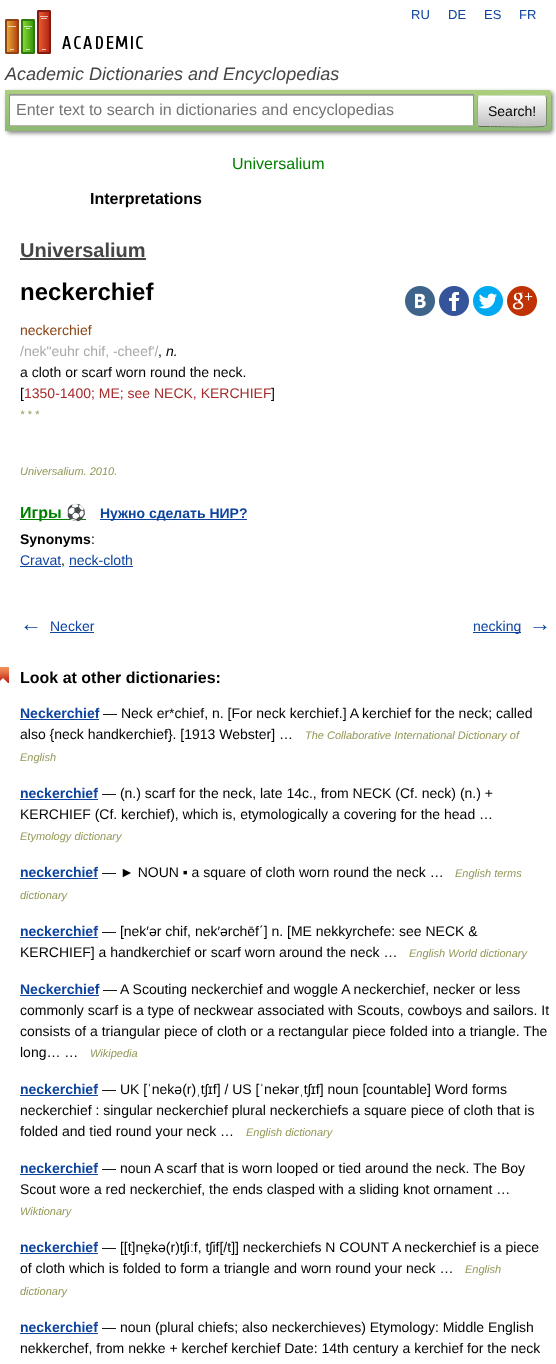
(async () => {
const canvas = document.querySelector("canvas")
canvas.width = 556
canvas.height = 1364
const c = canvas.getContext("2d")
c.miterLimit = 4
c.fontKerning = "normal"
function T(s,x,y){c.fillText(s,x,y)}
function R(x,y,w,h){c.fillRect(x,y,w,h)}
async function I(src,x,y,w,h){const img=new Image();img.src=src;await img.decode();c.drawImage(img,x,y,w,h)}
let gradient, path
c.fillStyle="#fff"
R(0,0,556,1364)
await I("1.png",5,10,138,44)
c.font="13px Liberation Sans"
c.fillStyle="#0d44a0"
T("RU",411,19)
T("DE",448,19)
T("ES",484,19)
T("FR",519,19)
c.font="italic 18px Liberation Sans"
c.fillStyle="#454545"
T("Academic Dictionaries and Encyclopedias",5,80)
c.fillStyle="#00000080"
c.filter="blur(2px)"
c.beginPath()
c.roundRect(7,92,546,41,3)
c.fill()
c.filter="none"
gradient = c.createLinearGradient(278,90,278,131)
gradient.addColorStop(0,"#abcf7e")
gradient.addColorStop(1,"#8eb874")
c.fillStyle = gradient
c.beginPath()
c.roundRect(5,90,546,41,[0,3,3,0])
c.fill()
c.fillStyle="#fff"
R(10,96,463,29)
c.fillStyle="#b3b3b3"
R(10,95,463,1)
c.fillStyle="#949494"
R(9,94,465,1)
R(473,94,1,32)
c.fillStyle="#b4b4b4"
R(9,125,465,1)
c.fillStyle="#949494"
R(9,94,1,32)
c.font="16px Liberation Sans"
c.fillStyle="#757575"
T("Enter text to search in dictionaries and encyclopedias",16,115)
c.save()
c.beginPath()
c.roundRect(477,95,70,32,3)
c.clip()
gradient = c.createLinearGradient(512,66,512,96)
gradient.addColorStop(0,"#fff")
gradient.addColorStop(1,"#c1c1c1")
c.fillStyle = gradient
R(477,95,70,1)
gradient = c.createLinearGradient(512,96,512,126)
gradient.addColorStop(0,"#fff")
gradient.addColorStop(1,"#c1c1c1")
c.fillStyle = gradient
R(477,96,70,30)
gradient = c.createLinearGradient(512,126,512,156)
gradient.addColorStop(0,"#fff")
gradient.addColorStop(1,"#c1c1c1")
c.fillStyle = gradient
R(477,126,70,1)
c.restore()
path = new Path2D("M478 96l2-.5h10.5c6.5 0 53-1 55 .5h.5")
c.strokeStyle="#d1e4bc"
c.stroke(path)
path = new Path2D("M546 96c0 .5 .5 1.5 .5 2v26c0 .5-.5 1.5-.5 2")
c.strokeStyle="#7a8e69"
c.stroke(path)
path = new Path2D("M546 126h-.5c-2 1.5-48.5 .5-55 .5h-10.5l-2-.5")
c.strokeStyle="#5d7250"
c.stroke(path)
path = new Path2D("M478 126c0-.5-.5-1.5-.5-2v-26c0-.5 .5-1.5 .5-2")
c.strokeStyle="#9aae89"
c.stroke(path)
c.font="14px Liberation Sans"
c.fillStyle="#000"
T("Search!",488,116)
c.font="16px Liberation Sans"
c.fillStyle="#008000"
T("Universalium",232,169)
c.font="bold 16px Liberation Sans"
c.fillStyle="#000"
T("Interpretations",90,204)
c.font="bold 20px Liberation Sans"
c.fillStyle="#454545"
T("Universalium",20,257)
R(20,258,126,2)
c.font="bold 24px Liberation Sans"
c.fillStyle="#000"
T("neckerchief",20,300)
await I("2.png",405,286,30,30)
await I("3.png",439,286,30,30)
await I("4.png",473,286,30,30)
await I("5.png",507,286,30,30)
c.font="14px Liberation Sans"
c.fillStyle="#8b4513"
T("neckerchief",20,335)
c.fillStyle="#a9a9a9"
T("/nek\"euhr chif, -cheef'/",20,356)
c.fillStyle="#000"
T(",",158,356)
c.font="italic 14px Liberation Sans"
T("n.",166,356)
c.font="14px Liberation Sans"
T("a cloth or scarf worn round the neck.",20,377)
T("[",20,398)
c.fillStyle="#a52a2a"
T("1350-1400; ME; see NECK, KERCHIEF",24,398)
c.fillStyle="#000"
T("]",271,398)
c.font="italic 11px Liberation Sans"
c.fillStyle="#939756"
T("* * *",20,418)
T("Universalium. 2010.",20,475)
c.fillStyle="#008000"
R(20,519,66,1)
c.font="bold 16px Liberation Sans"
T("Игры",20,518)
c.font="bold 16px Noto Color Emoji"
T("⚽",66,518)
c.fillStyle="#0d44a0"
R(100,519,147,1)
c.font="bold 14px Liberation Sans"
T("Нужно сделать НИР?",100,518)
c.fillStyle="#000"
T("Synonyms",20,544)
c.font="14px Liberation Sans"
T(":",91,544)
c.fillStyle="#0d44a0"
T("Cravat",20,565)
R(20,566,41,1)
c.fillStyle="#000"
T(",",61,565)
c.fillStyle="#0d44a0"
T("neck-cloth",69,565)
R(69,566,64,1)
c.font="bold 22px Liberation Sans"
T("←",20,631)
c.font="14px Liberation Sans"
T("Necker",50,631)
R(50,632,44,1)
R(473,632,48,1)
T("necking",473,631)
c.font="bold 22px Liberation Sans"
T("→",529,631)
await I("6.png",0,667,9,16)
c.font="bold 16px Liberation Sans"
c.fillStyle="#000"
T("Look at other dictionaries:",20,683)
c.font="bold 14px Liberation Sans"
c.fillStyle="#0d44a0"
T("Neckerchief",20,718)
R(20,719,79,1)
c.font="14px Liberation Sans"
c.fillStyle="#000"
T("— Neck er*chief, n. [For neck kerchief.] A kerchief for the neck; called",103,718)
T("also {neck handkerchief}. [1913 Webster] …",20,739)
c.font="italic 11px Liberation Sans"
c.fillStyle="#939756"
T("The Collaborative International Dictionary of",305,739)
T("English",20,761)
c.font="bold 14px Liberation Sans"
c.fillStyle="#0d44a0"
T("neckerchief",20,798)
R(20,799,78,1)
c.font="14px Liberation Sans"
c.fillStyle="#000"
T("— (n.) scarf for the neck, late 14c., from NECK (Cf. neck) (n.) +",102,798)
T("KERCHIEF (Cf. kerchief), which is, etymologically a covering for the head …",20,819)
c.font="italic 11px Liberation Sans"
c.fillStyle="#939756"
T("Etymology dictionary",20,840)
c.font="bold 14px Liberation Sans"
c.fillStyle="#0d44a0"
T("neckerchief",20,877)
R(20,878,78,1)
c.font="14px Liberation Sans"
c.fillStyle="#000"
T("— ► NOUN ▪ a square of cloth worn round the neck …",102,877)
c.font="italic 11px Liberation Sans"
c.fillStyle="#939756"
T("English terms",455,877)
T("dictionary",20,899)
c.font="bold 14px Liberation Sans"
c.fillStyle="#0d44a0"
T("neckerchief",20,936)
R(20,937,78,1)
c.font="14px Liberation Sans"
c.fillStyle="#000"
T("— [nek′ər chif, nek′ərchēf΄] n. [ME nekkyrchefe: see NECK &",102,936)
T("KERCHIEF] a handkerchief or scarf worn around the neck …",20,957)
c.font="italic 11px Liberation Sans"
c.fillStyle="#939756"
T("English World dictionary",409,957)
c.font="bold 14px Liberation Sans"
c.fillStyle="#0d44a0"
T("Neckerchief",20,994)
R(20,995,79,1)
c.font="14px Liberation Sans"
c.fillStyle="#000"
T("— A Scouting neckerchief and woggle A neckerchief, necker or less",103,994)
T("commonly scarf is a type of neckwear associated with Scouts, cowboys and sailors. It",20,1015)
T("consists of a triangular piece of cloth or a rectangular piece folded into a triangle. The",20,1036)
T("long… …",20,1057)
c.font="italic 11px Liberation Sans"
c.fillStyle="#939756"
T("Wikipedia",90,1057)
c.font="bold 14px Liberation Sans"
c.fillStyle="#0d44a0"
T("neckerchief",20,1094)
R(20,1095,78,1)
c.font="14px Liberation Sans"
c.fillStyle="#000"
T("— UK [ˈnekə(r)ˌtʃɪf] / US [ˈnekərˌtʃɪf] noun [countable] Word forms",102,1094)
T("neckerchief : singular neckerchief plural neckerchiefs a square piece of cloth that is",20,1115)
T("folded and tied round your neck …",20,1136)
c.font="italic 11px Liberation Sans"
c.fillStyle="#939756"
T("English dictionary",246,1136)
c.font="bold 14px Liberation Sans"
c.fillStyle="#0d44a0"
T("neckerchief",20,1173)
R(20,1174,78,1)
c.font="14px Liberation Sans"
c.fillStyle="#000"
T("— noun A scarf that is worn looped or tied around the neck. The Boy",102,1173)
T("Scout wore a red neckerchief, the ends clasped with a sliding knot ornament …",20,1194)
c.font="italic 11px Liberation Sans"
c.fillStyle="#939756"
T("Wiktionary",20,1215)
c.font="bold 14px Liberation Sans"
c.fillStyle="#0d44a0"
T("neckerchief",20,1252)
R(20,1253,78,1)
c.font="14px Liberation Sans"
c.fillStyle="#000"
T("— [[t]ne̱kə(r)tʃiːf, tʃif[/t]] neckerchiefs N COUNT A neckerchief is a piece",102,1252)
T("of cloth which is folded to form a triangle and worn round your neck …",20,1273)
c.font="italic 11px Liberation Sans"
c.fillStyle="#939756"
T("English",465,1273)
T("dictionary",20,1295)
c.font="bold 14px Liberation Sans"
c.fillStyle="#0d44a0"
T("neckerchief",20,1332)
R(20,1333,78,1)
c.font="14px Liberation Sans"
c.fillStyle="#000"
T("— noun (plural chiefs; also neckerchieves) Etymology: Middle English",102,1332)
T("nekkerchef, from nekke + kerchef kerchief Date: 14th century a kerchief for the neck",20,1353)
})()
